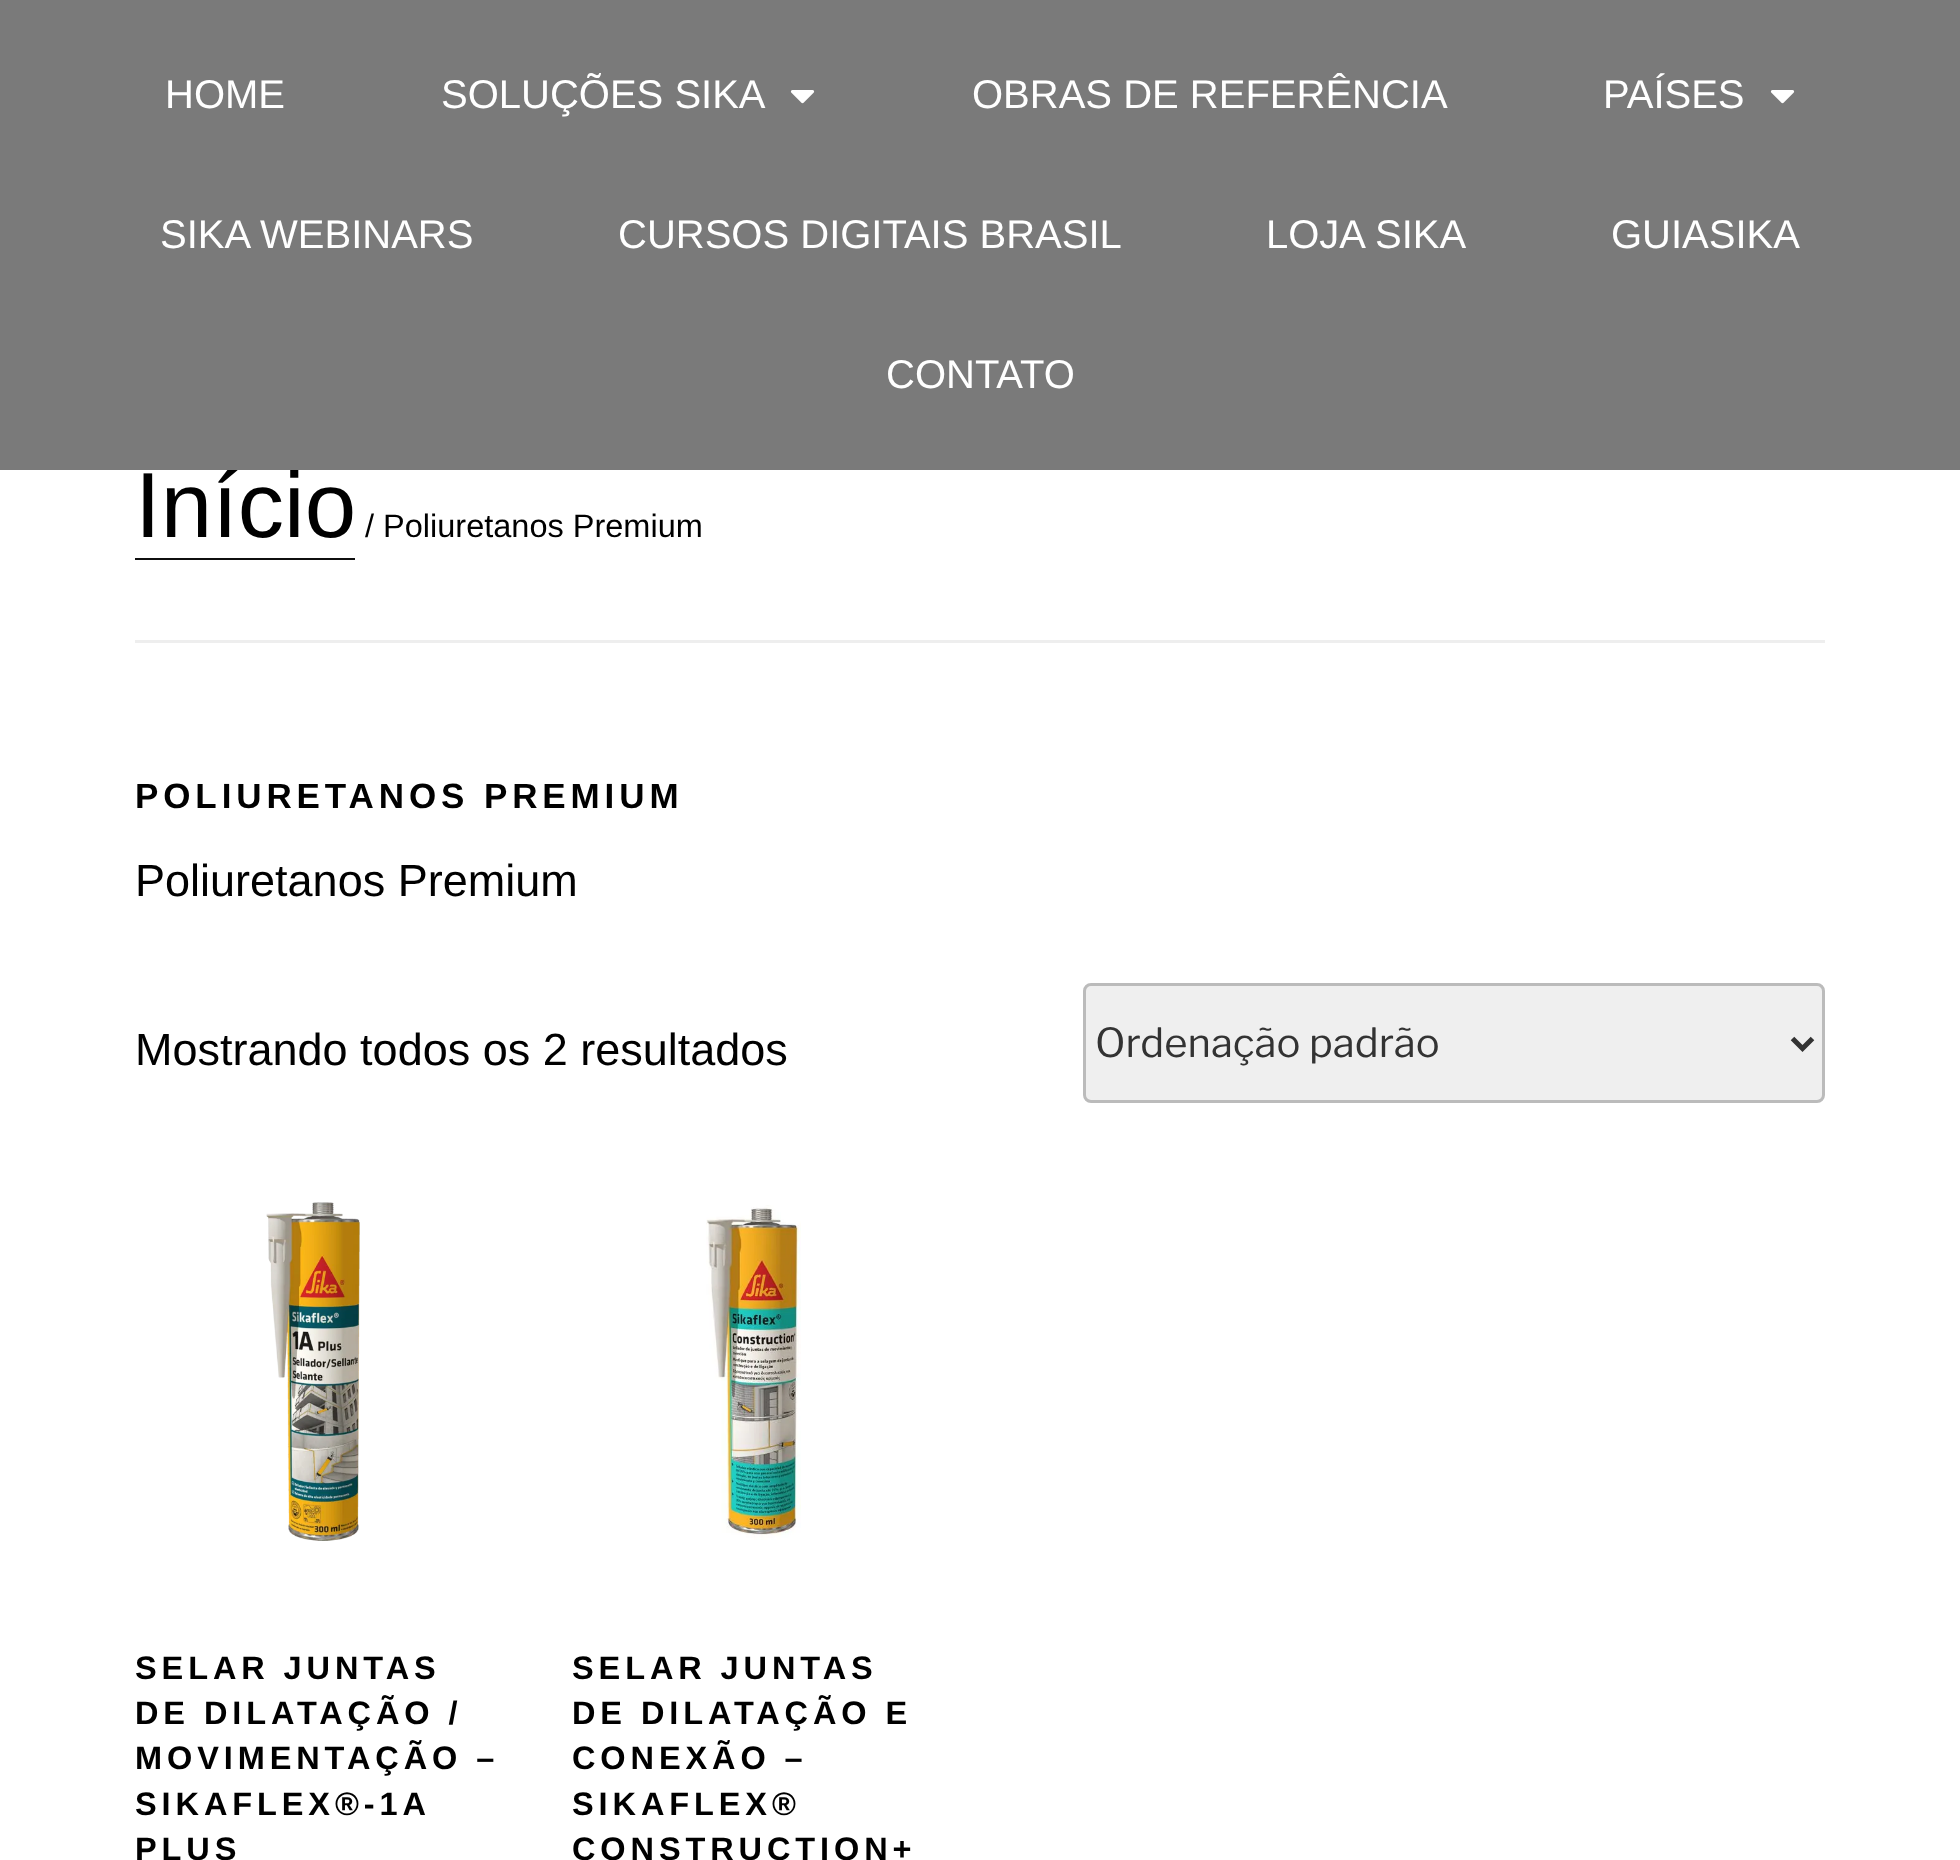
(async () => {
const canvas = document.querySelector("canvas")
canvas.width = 1960
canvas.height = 1860
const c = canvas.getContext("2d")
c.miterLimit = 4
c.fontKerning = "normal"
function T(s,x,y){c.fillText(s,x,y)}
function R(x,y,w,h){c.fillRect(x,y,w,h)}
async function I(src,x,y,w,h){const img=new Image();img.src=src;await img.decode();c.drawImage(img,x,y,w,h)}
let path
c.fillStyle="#fff"
R(0,0,1960,1860)
c.font="92.5px Liberation Sans"
c.fillStyle="#000"
T("Início",135,537)
c.fillStyle="#7a7a7a"
R(0,0,1960,470)
c.font="40px Liberation Sans"
c.fillStyle="#fff"
T("HOME",165,108)
T("SOLUÇÕES SIKA",441,108)
await I("1.png",790,90,25,14)
T("OBRAS DE REFERÊNCIA",972,108)
T("PAÍSES",1603,108)
await I("1.png",1770,90,25,14)
T("SIKA WEBINARS",160,248)
T("CURSOS DIGITAIS BRASIL",618,248)
T("LOJA SIKA",1266,248)
T("GUIASIKA",1611,248)
T("CONTATO",886,388)
c.fillStyle="#eee"
R(135,640,1690,3)
c.fillStyle="#0f0f0f"
R(135,558,220,2)
c.font="32.5px Liberation Sans"
c.fillStyle="#000"
T("/ Poliuretanos Premium",365,537)
c.letterSpacing="4.9px"
c.font="bold 35px Liberation Sans"
T("POLIURETANOS PREMIUM",135,808)
c.letterSpacing="0px"
c.font="45px Liberation Sans"
T("Poliuretanos Premium",135,896)
T("Mostrando todos os 2 resultados",135,1065)
c.fillStyle="#efefef"
c.beginPath()
c.roundRect(1084.5,984.5,739,117,6.5)
c.fill()
c.strokeStyle="#bbb"
c.lineWidth=3
c.stroke()
path = new Path2D("M1792.5 1038.5l10 10l10-10")
c.strokeStyle="#333"
c.lineWidth=5
c.stroke(path)
c.font="100 40px Libre Franklin"
c.fillStyle="#333"
T("Ordenação padrão",1095,1057)
await I("2.png",266,1202,94,339)
c.letterSpacing="4.9px"
c.font="bold 32.5px Liberation Sans"
c.fillStyle="#000"
T("SELAR JUNTAS",135,1679)
T("DE DILATAÇÃO /",135,1724)
T("MOVIMENTAÇÃO –",135,1769)
T("SIKAFLEX®-1A",135,1815)
T("PLUS",135,1860)
await I("3.png",706,1205,95,335)
T("SELAR JUNTAS",572,1679)
T("DE DILATAÇÃO E",572,1724)
T("CONEXÃO –",572,1769)
T("SIKAFLEX®",572,1815)
T("CONSTRUCTION+",572,1860)
})()
